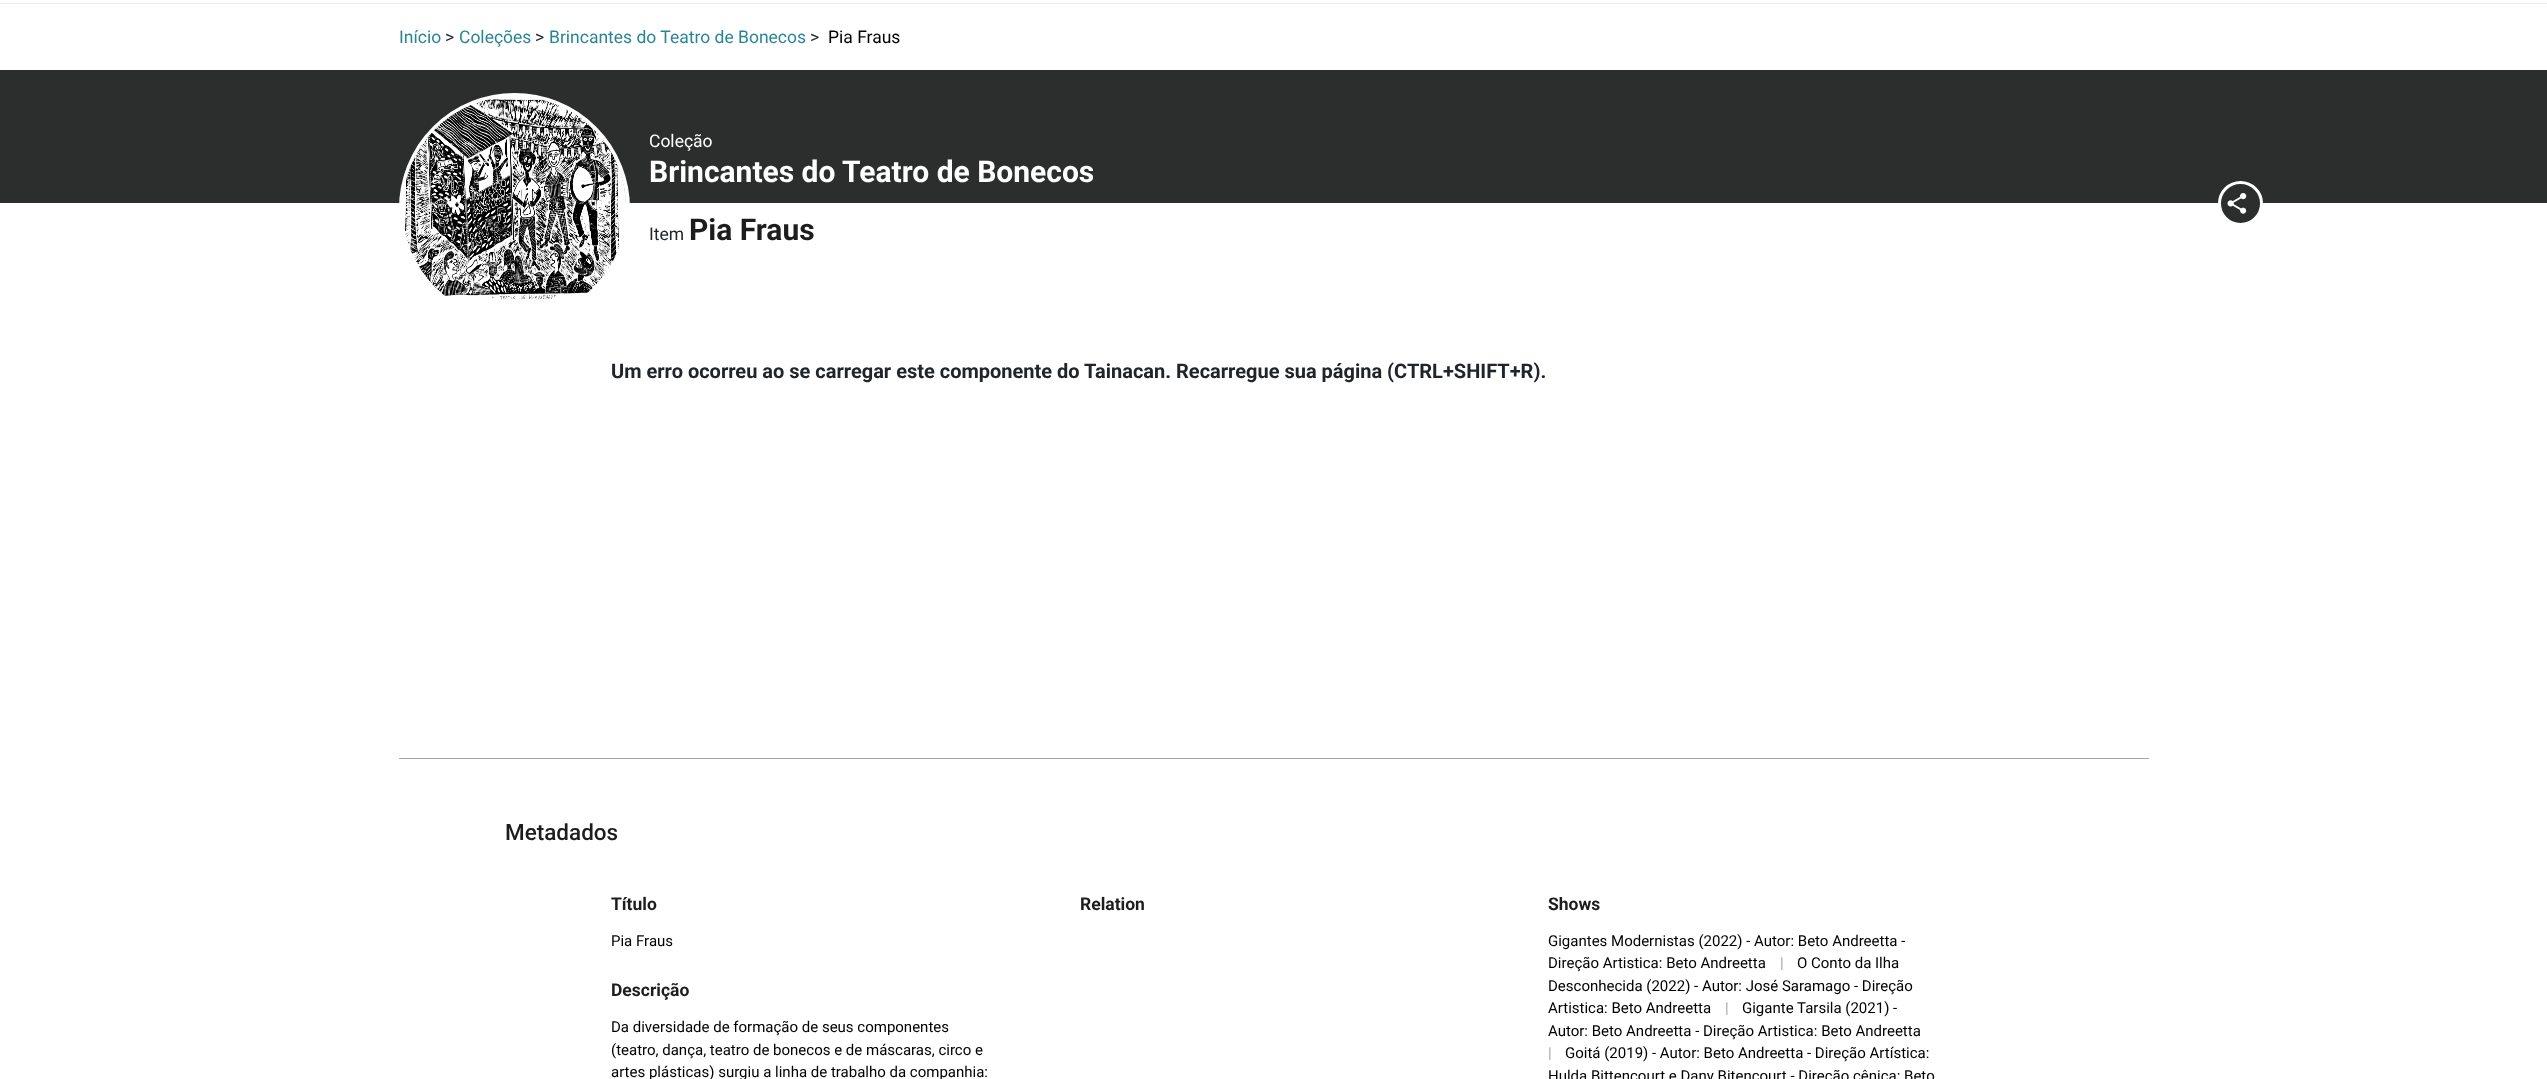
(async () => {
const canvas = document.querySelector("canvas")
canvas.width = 2547
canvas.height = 1079
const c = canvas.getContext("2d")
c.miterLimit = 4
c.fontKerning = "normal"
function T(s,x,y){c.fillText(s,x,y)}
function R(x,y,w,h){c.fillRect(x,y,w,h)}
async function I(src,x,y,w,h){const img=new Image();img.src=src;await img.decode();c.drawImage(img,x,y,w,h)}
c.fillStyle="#fff"
R(0,0,2547,1079)
c.fillStyle="#ededed"
R(0,3,2547,1)
c.font="17.5px Roboto"
c.fillStyle="#298596"
T("Início",399,43)
c.fillStyle="#212529"
T(">",445,43)
c.fillStyle="#298596"
T("Coleções",459,43)
c.fillStyle="#212529"
T(">",535,43)
c.fillStyle="#298596"
T("Brincantes do Teatro de Bonecos",549,43)
c.fillStyle="#212529"
T(">",810,43)
c.fillStyle="#000"
T("Pia Fraus",828,43)
c.fillStyle="#2c2d2d"
R(0,70,2547,133)
c.beginPath()
c.arc(514.5,208.5,113.5,0,7)
c.strokeStyle="#fff"
c.lineWidth=4
c.stroke()
await I("1.png",403,97,223,203)
c.fillStyle="#fff"
T("Coleção",649,147)
c.font="bold 30px Roboto"
T("Brincantes do Teatro de Bonecos",649,182)
c.fillStyle="#2c2d2d"
c.beginPath()
c.arc(2240.5,203.5,21,0,7)
c.fill()
c.lineWidth=3
c.stroke()
await I("2.png",2227,193,20,21)
c.font="17.5px Roboto"
c.fillStyle="#212529"
T("Item",649,240)
c.font="bold 30px Roboto"
c.fillStyle="#1d1d1d"
T("Pia Fraus",689,240)
c.font="bold 20px Roboto"
c.fillStyle="#212529"
T("Um erro ocorreu ao se carregar este componente do Tainacan. Recarregue sua página (CTRL+SHIFT+R).",611,378)
c.fillStyle="#a5a5a5"
R(399,758,1750,1)
c.font="500 22.5px Roboto"
c.fillStyle="#1d1d1d"
T("Metadados",505,840)
c.font="bold 17.5px Roboto"
T("Título",611,910)
c.font="15px Roboto"
c.fillStyle="#000"
T("Pia Fraus",611,946)
c.font="bold 17.5px Roboto"
c.fillStyle="#1d1d1d"
T("Relation",1080,910)
T("Shows",1548,910)
c.font="15px Roboto"
c.fillStyle="#000"
T("Gigantes Modernistas (2022) - Autor: Beto Andreetta -",1548,946)
T("Direção Artistica: Beto Andreetta",1548,968)
c.fillStyle="#a5a5a5"
T("|",1780,968)
c.fillStyle="#000"
T("O Conto da Ilha",1797,968)
T("Desconhecida (2022) - Autor: José Saramago - Direção",1548,991)
T("Artistica: Beto Andreetta",1548,1013)
c.fillStyle="#a5a5a5"
T("|",1725,1013)
c.fillStyle="#000"
T("Gigante Tarsila (2021) -",1742,1013)
T("Autor: Beto Andreetta - Direção Artistica: Beto Andreetta",1548,1036)
c.fillStyle="#a5a5a5"
T("|",1548,1058)
c.fillStyle="#000"
T("Goitá (2019) - Autor: Beto Andreetta - Direção Artística:",1565,1058)
T("Hulda Bittencourt e Dany Bitencourt - Direção cênica: Beto",1548,1081)
c.font="bold 17.5px Roboto"
c.fillStyle="#1d1d1d"
T("Descrição",611,996)
c.font="15px Roboto"
c.fillStyle="#000"
T("Da diversidade de formação de seus componentes",611,1032)
T("(teatro, dança, teatro de bonecos e de máscaras, circo e",611,1055)
T("artes plásticas) surgiu a linha de trabalho da companhia:",611,1077)
})()
